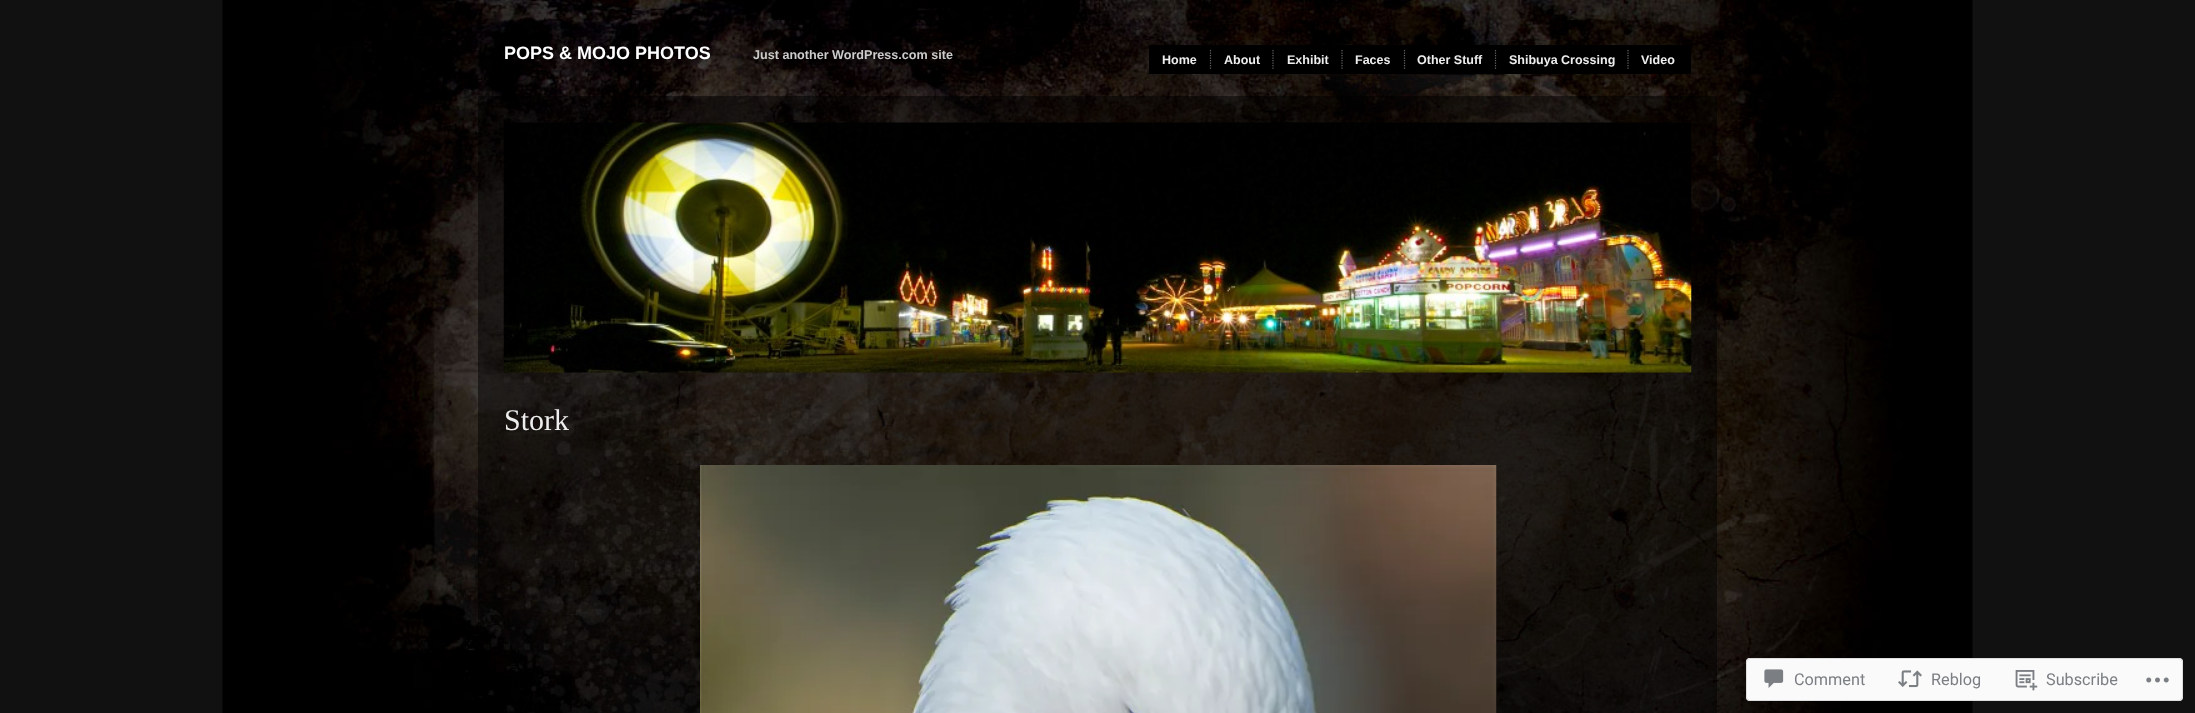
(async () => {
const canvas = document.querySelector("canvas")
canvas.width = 2195
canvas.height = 713
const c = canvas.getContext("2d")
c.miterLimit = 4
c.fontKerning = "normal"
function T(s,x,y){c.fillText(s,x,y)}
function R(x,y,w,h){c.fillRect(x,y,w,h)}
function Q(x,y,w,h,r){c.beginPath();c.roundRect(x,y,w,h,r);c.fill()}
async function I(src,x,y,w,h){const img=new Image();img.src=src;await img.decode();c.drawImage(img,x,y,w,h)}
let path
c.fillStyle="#111"
R(0,0,2195,713)
await I("1.png",222,0,1751,713)
c.font="bold 18px Liberation Sans"
c.fillStyle="#fff"
T("POPS & MOJO PHOTOS",504,59)
c.font="bold 12.6px Liberation Sans"
c.fillStyle="#ccc"
T("Just another WordPress.com site",753,59)
c.fillStyle="#000"
R(1149,45,542,29)
path = new Path2D("M1210.5 50v19")
c.strokeStyle="#666"
c.lineWidth=1.2
c.setLineDash([1.25,1.25])
c.stroke(path)
c.font="bold 12.5px Liberation Sans"
c.fillStyle="#eee"
T("Home",1162,64)
path = new Path2D("M1273 50v19")
c.stroke(path)
T("About",1224,64)
path = new Path2D("M1342 50v19")
c.stroke(path)
T("Exhibit",1287,64)
path = new Path2D("M1404.5 50v19")
c.stroke(path)
T("Faces",1355,64)
path = new Path2D("M1495.5 50v19")
c.stroke(path)
T("Other Stuff",1417,64)
path = new Path2D("M1628 50v19")
c.stroke(path)
T("Shibuya Crossing",1509,64)
T("Video",1641,64)
c.fillStyle="#00000080"
R(478,96,1239,617)
await I("2.png",503,122,1189,251)
c.font="30px Liberation Serif"
c.fillStyle="#eee"
T("Stork",504,430)
await I("3.png",700,465,797,248)
c.fillStyle="#fffffffa"
Q(1746,658,437,43,4)
c.beginPath()
c.roundRect(1746.5,658.5,436,42,3.5)
c.strokeStyle="#dcdcdefa"
c.lineWidth=1
c.setLineDash([])
c.stroke()
await I("4.png",1764,669,20,19)
c.font="16.25px Roboto"
c.fillStyle="#7b7f84"
T("Comment",1794,685)
await I("5.png",1898,670,24,18)
T("Reblog",1931,685)
await I("6.png",2015,670,23,21)
T("Subscribe",2046,685)
await I("7.png",2146,677,23,6)
})()
